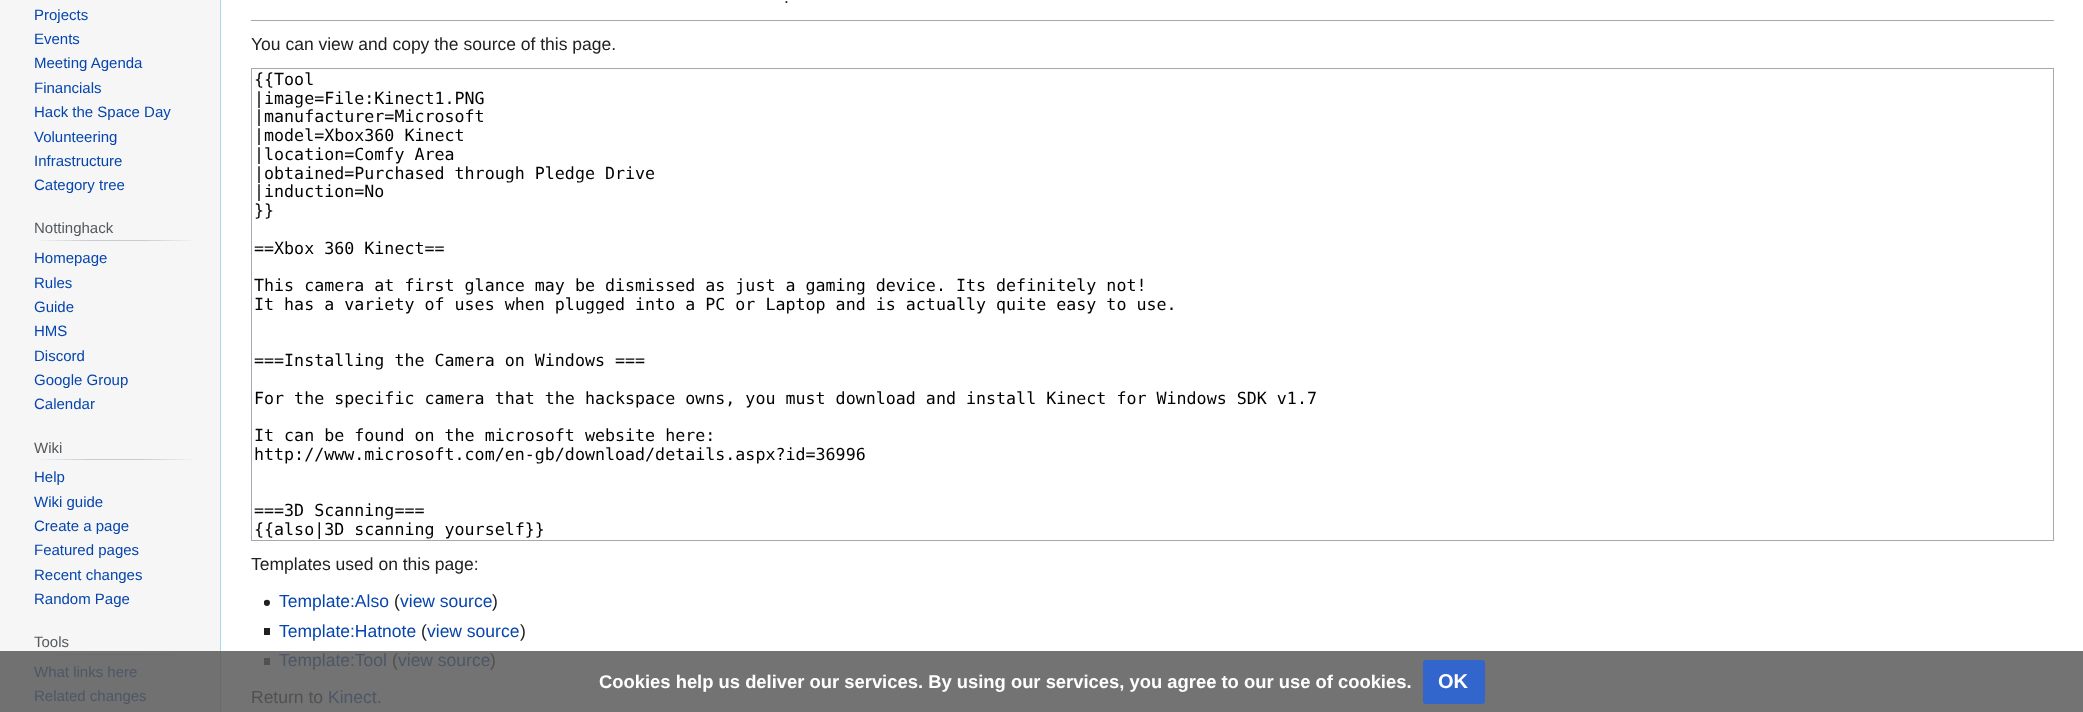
(async () => {
const canvas = document.querySelector("canvas")
canvas.width = 2083
canvas.height = 712
const c = canvas.getContext("2d")
c.miterLimit = 4
c.fontKerning = "normal"
function T(s,x,y){c.fillText(s,x,y)}
function R(x,y,w,h){c.fillRect(x,y,w,h)}
async function I(src,x,y,w,h){const img=new Image();img.src=src;await img.decode();c.drawImage(img,x,y,w,h)}
let gradient
c.fillStyle="#f6f6f6"
R(0,0,2083,712)
c.fillStyle="#717171"
R(0,651,220,61)
c.font="15px Liberation Sans"
c.fillStyle="#0645ad"
T("Projects",34,20)
T("Events",34,44)
T("Meeting Agenda",34,68)
T("Financials",34,93)
T("Hack the Space Day",34,117)
T("Volunteering",34,142)
T("Infrastructure",34,166)
T("Category tree",34,190)
gradient = c.createLinearGradient(34,241,198,241)
gradient.addColorStop(0,"#f6f6f6")
gradient.addColorStop(.33,"#c8ccd1")
gradient.addColorStop(.66,"#c8ccd1")
gradient.addColorStop(1,"#f6f6f6")
c.fillStyle = gradient
R(34,240,164,1)
c.fillStyle="#54595d"
T("Nottinghack",34,233)
c.fillStyle="#0645ad"
T("Homepage",34,263)
T("Rules",34,288)
T("Guide",34,312)
T("HMS",34,336)
T("Discord",34,361)
T("Google Group",34,385)
T("Calendar",34,409)
gradient = c.createLinearGradient(34,459,198,459)
gradient.addColorStop(0,"#f6f6f6")
gradient.addColorStop(.33,"#c8ccd1")
gradient.addColorStop(.66,"#c8ccd1")
gradient.addColorStop(1,"#f6f6f6")
c.fillStyle = gradient
R(34,459,164,1)
c.fillStyle="#54595d"
T("Wiki",34,453)
c.fillStyle="#0645ad"
T("Help",34,482)
T("Wiki guide",34,507)
T("Create a page",34,531)
T("Featured pages",34,555)
T("Recent changes",34,580)
T("Random Page",34,604)
gradient = c.createLinearGradient(34,654,198,654)
gradient.addColorStop(0,"#717171")
gradient.addColorStop(.33,"#6b6b6c")
gradient.addColorStop(.66,"#6b6b6c")
gradient.addColorStop(1,"#717171")
c.fillStyle = gradient
R(57,654,118,1)
c.fillStyle="#54595d"
T("Tools",34,647)
c.fillStyle="#4d5766"
T("What links here",34,677)
T("Related changes",34,701)
c.fillStyle="#fff"
R(221,0,1862,651)
c.fillStyle="#737373"
R(221,651,1862,61)
c.fillStyle="#a7d7f9"
R(220,0,1,651)
c.fillStyle="#666d72"
R(220,651,1,61)
c.font="17.5px Liberation Sans"
c.fillStyle="#202122"
T(".",784,3)
c.fillStyle="#a2a9b1"
R(251,20,1803,1)
c.fillStyle="#202122"
T("You can view and copy the source of this page.",251,50)
c.strokeStyle="#a2a9b1"
c.strokeRect(251.5,68.5,1802,472)
c.font="16.67px DejaVu Sans Mono"
c.fillStyle="#000"
T("{{Tool",254,85)
T("|image=File:Kinect1.PNG",254,104)
T("|manufacturer=Microsoft",254,122)
T("|model=Xbox360 Kinect",254,141)
T("|location=Comfy Area",254,160)
T("|obtained=Purchased through Pledge Drive",254,179)
T("|induction=No",254,197)
T("}}",254,216)
T("==Xbox 360 Kinect==",254,254)
T("This camera at first glance may be dismissed as just a gaming device. Its definitely not!",254,291)
T("It has a variety of uses when plugged into a PC or Laptop and is actually quite easy to use.",254,310)
T("===Installing the Camera on Windows ===",254,366)
T("For the specific camera that the hackspace owns, you must download and install Kinect for Windows SDK v1.7",254,404)
T("It can be found on the microsoft website here:",254,441)
T("http://www.microsoft.com/en-gb/download/details.aspx?id=36996",254,460)
T("===3D Scanning===",254,516)
T("{{also|3D scanning yourself}}",254,535)
c.font="17.5px Liberation Sans"
c.fillStyle="#202122"
T("Templates used on this page:",251,570)
await I("1.png",264,599,6,7)
c.fillStyle="#0645ad"
T("Template:Also",279,607)
c.fillStyle="#202122"
T("(",394,607)
c.fillStyle="#0645ad"
T("view source",400,607)
c.fillStyle="#202122"
T(")",492,607)
R(264,628,6,7)
c.fillStyle="#0645ad"
T("Template:Hatnote",279,637)
c.fillStyle="#202122"
T("(",421,637)
c.fillStyle="#0645ad"
T("view source",427,637)
c.fillStyle="#202122"
T(")",520,637)
c.fillStyle="#515152"
R(264,658,6,7)
c.fillStyle="#4d5766"
T("Template:Tool",279,666)
c.fillStyle="#515152"
T("(",392,666)
c.fillStyle="#4d5766"
T("view source",398,666)
c.fillStyle="#515152"
T(")",490,666)
T("Return to",251,703)
c.fillStyle="#4d5766"
T("Kinect",328,703)
c.fillStyle="#515152"
T(".",377,703)
c.font="bold 18.4px Liberation Sans"
c.fillStyle="#fff"
T("Cookies help us deliver our services. By using our services, you agree to our use of cookies.",599,688)
c.fillStyle="#36c"
c.beginPath()
c.roundRect(1423.5,660.5,61,43,2)
c.fill()
c.strokeStyle="#36c"
c.stroke()
c.font="bold 20px Liberation Sans"
c.fillStyle="#fff"
T("OK",1438,688)
})()
